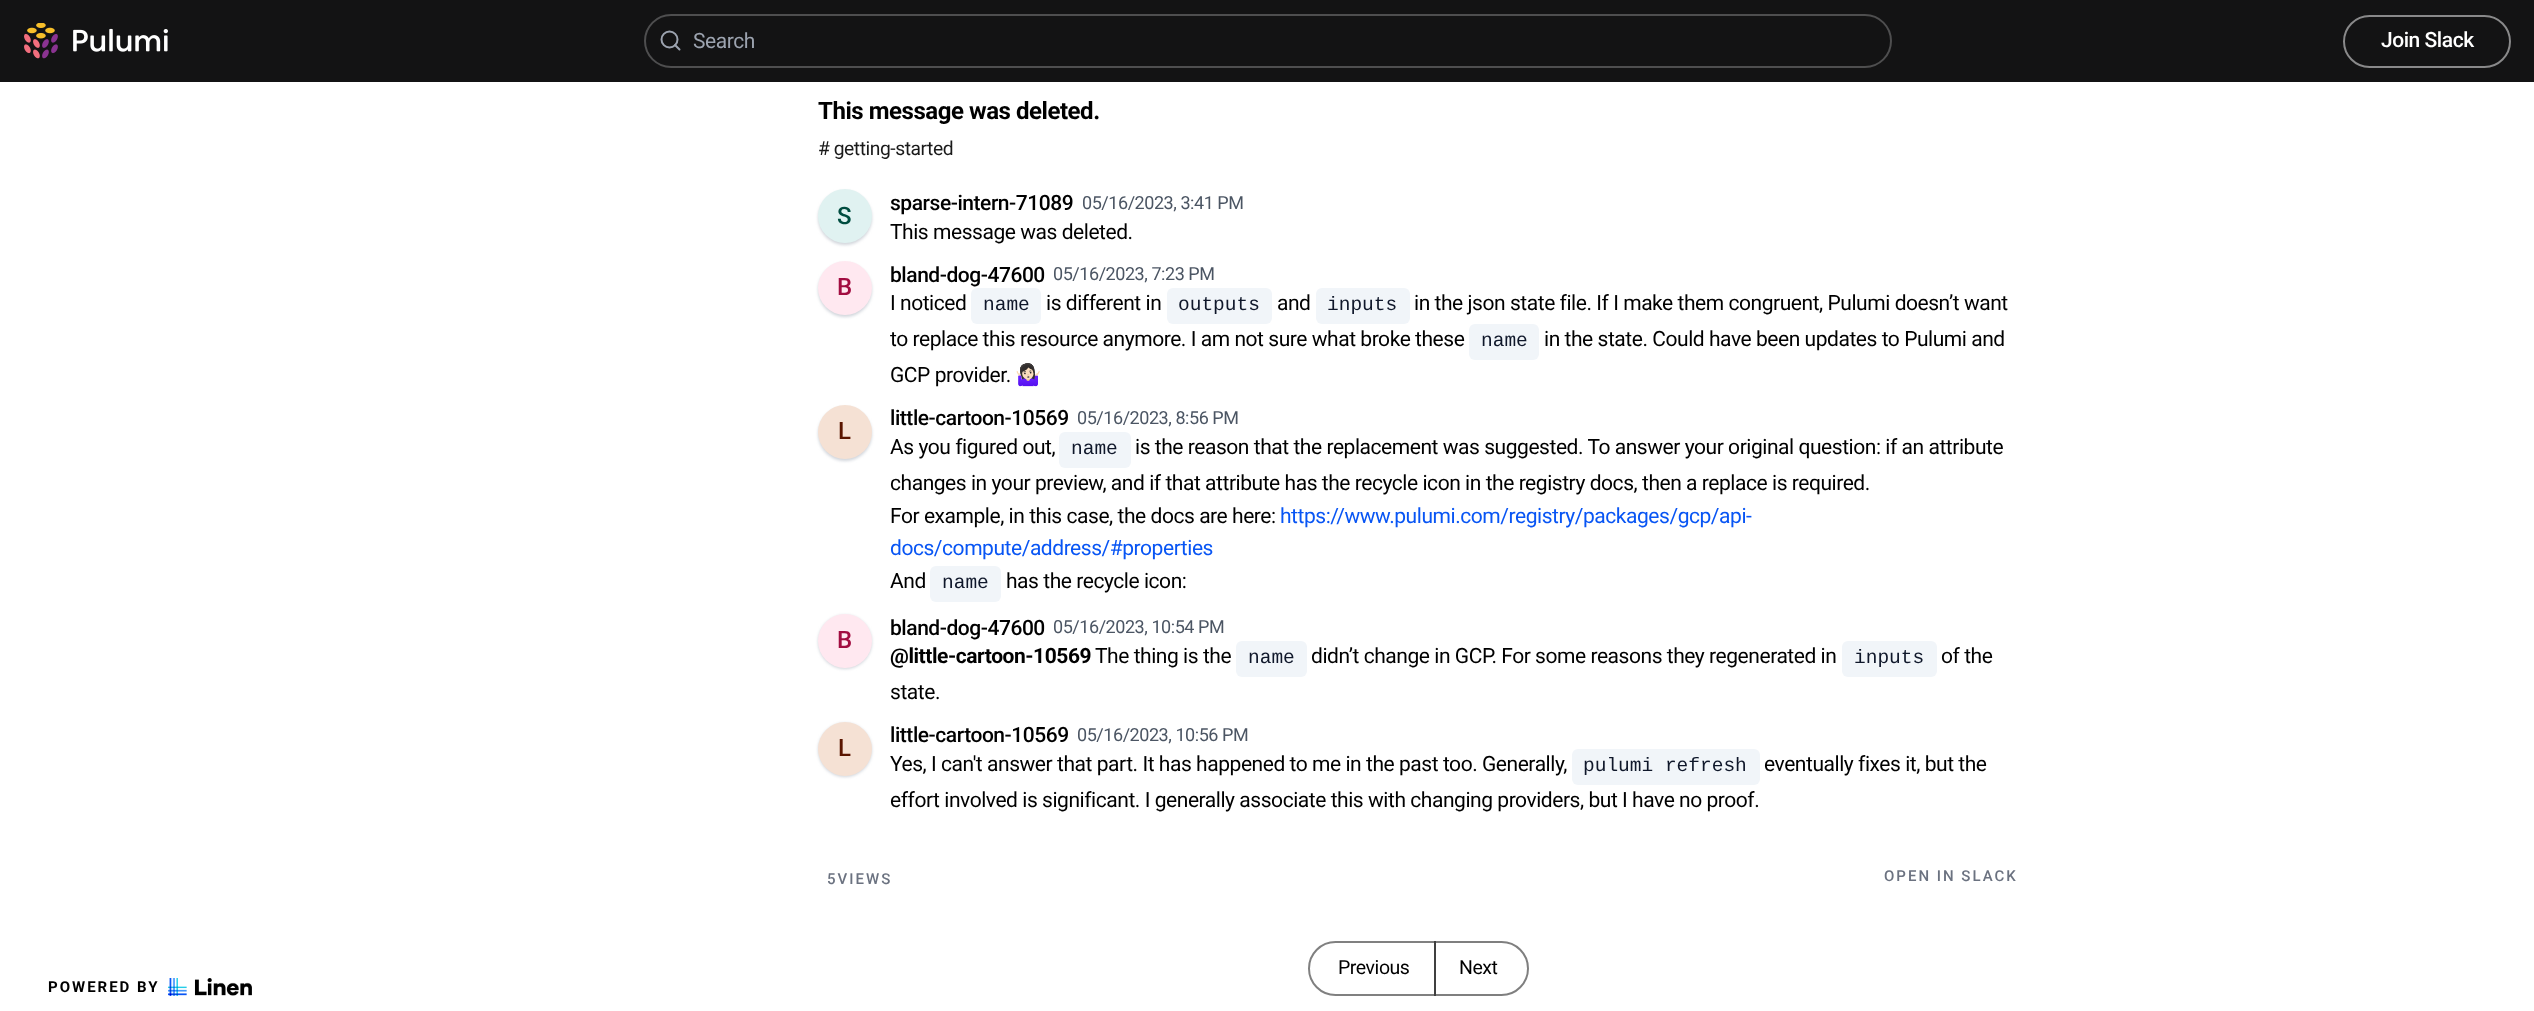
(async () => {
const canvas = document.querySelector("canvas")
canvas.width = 2534
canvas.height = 1011
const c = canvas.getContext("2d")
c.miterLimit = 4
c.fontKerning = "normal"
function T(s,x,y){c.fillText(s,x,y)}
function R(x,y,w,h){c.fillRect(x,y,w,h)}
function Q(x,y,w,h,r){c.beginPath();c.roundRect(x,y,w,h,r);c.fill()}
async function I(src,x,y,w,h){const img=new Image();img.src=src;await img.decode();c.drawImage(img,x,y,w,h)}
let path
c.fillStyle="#fff"
R(0,0,2534,1011)
c.fillStyle="#131314"
R(0,0,2534,82)
await I("1.png",24,23,144,36)
c.beginPath()
c.roundRect(645,15,1246,52,26)
c.strokeStyle="#4e4e4f"
c.lineWidth=2
c.stroke()
c.beginPath()
c.arc(669.5,39.5,8,0,7)
c.strokeStyle="#9ca3af"
c.stroke()
path = new Path2D("M679.5 49.5l-4.5-4.5")
c.lineCap="round"
c.lineJoin="round"
c.stroke(path)
c.letterSpacing="-0.45px"
c.font="21px Roboto"
c.fillStyle="#9ca3af"
T("Search",693,48)
c.beginPath()
c.roundRect(2344,16,166,51,25.5)
c.strokeStyle="#89898a"
c.lineJoin="miter"
c.stroke()
c.font="500 21px Roboto"
c.fillStyle="#fff"
T("Join Slack",2381,47)
c.font="bold 24px Roboto"
c.fillStyle="#000"
T("This message was deleted.",818,119)
c.font="19.25px Roboto"
c.fillStyle="#1a1a1a"
T("# getting-started",818,155)
c.fillStyle="#d1d5db"
c.filter="blur(1.5px)"
c.beginPath()
c.roundRect(818,191,54,54,27)
c.fill()
c.filter="none"
c.fillStyle="#e0f2f1"
c.beginPath()
c.arc(845,216,27,0,7)
c.fill()
c.font="500 24px Roboto"
c.fillStyle="#004d40"
T("S",837,224)
c.font="500 21px Roboto"
c.fillStyle="#000"
T("sparse-intern-71089",890,210)
c.font="18px Roboto"
c.fillStyle="#4b5563"
T("05/16/2023, 3:41 PM",1082,209)
c.font="21px Roboto"
c.fillStyle="#000"
T("This message was deleted.",890,239)
c.fillStyle="#d1d5db"
c.filter="blur(1.5px)"
c.beginPath()
c.roundRect(818,263,54,54,27)
c.fill()
c.filter="none"
c.fillStyle="#ffe8f0"
c.beginPath()
c.arc(845,288,27,0,7)
c.fill()
c.font="500 24px Roboto"
c.fillStyle="#a20d41"
T("B",837,295)
c.font="500 21px Roboto"
c.fillStyle="#000"
T("bland-dog-47600",890,282)
c.font="18px Roboto"
c.fillStyle="#4b5563"
T("05/16/2023, 7:23 PM",1053,280)
c.font="21px Roboto"
c.fillStyle="#000"
T("I noticed",890,310)
c.fillStyle="#f1f5f9"
Q(971,288,70,36,6)
c.letterSpacing="0px"
c.font="19.5px Liberation Mono"
c.fillStyle="#0f172a"
T("name",983,310)
c.letterSpacing="-0.45px"
c.font="21px Roboto"
c.fillStyle="#000"
T("is different in",1046,310)
c.fillStyle="#f1f5f9"
Q(1167,288,105,36,6)
c.letterSpacing="0px"
c.font="19.5px Liberation Mono"
c.fillStyle="#0f172a"
T("outputs",1178,310)
c.letterSpacing="-0.45px"
c.font="21px Roboto"
c.fillStyle="#000"
T("and",1277,310)
c.fillStyle="#f1f5f9"
Q(1316,288,94,36,6)
c.letterSpacing="0px"
c.font="19.5px Liberation Mono"
c.fillStyle="#0f172a"
T("inputs",1327,310)
c.letterSpacing="-0.45px"
c.font="21px Roboto"
c.fillStyle="#000"
T("in the json state file. If I make them congruent, Pulumi doesn’t want",1414,310)
T("to replace this resource anymore. I am not sure what broke these",890,346)
c.fillStyle="#f1f5f9"
Q(1469,324,70,36,6)
c.letterSpacing="0px"
c.font="19.5px Liberation Mono"
c.fillStyle="#0f172a"
T("name",1481,346)
c.letterSpacing="-0.45px"
c.font="21px Roboto"
c.fillStyle="#000"
T("in the state. Could have been updates to Pulumi and",1544,346)
T("GCP provider.",890,382)
c.font="21px Noto Color Emoji"
T("🤷🏻‍♀️",1015,382)
c.fillStyle="#d1d5db"
c.filter="blur(1.5px)"
c.beginPath()
c.roundRect(818,407,54,54,27)
c.fill()
c.filter="none"
c.fillStyle="#f5e1d4"
c.beginPath()
c.arc(845,432,27,0,7)
c.fill()
c.font="500 24px Roboto"
c.fillStyle="#5a1500"
T("L",838,439)
c.font="500 21px Roboto"
c.fillStyle="#000"
T("little-cartoon-10569",890,425)
c.font="18px Roboto"
c.fillStyle="#4b5563"
T("05/16/2023, 8:56 PM",1077,424)
c.font="21px Roboto"
c.fillStyle="#000"
T("As you figured out,",890,454)
c.fillStyle="#f1f5f9"
Q(1059,432,72,36,6)
c.letterSpacing="0px"
c.font="19.5px Liberation Mono"
c.fillStyle="#0f172a"
T("name",1071,454)
c.letterSpacing="-0.45px"
c.font="21px Roboto"
c.fillStyle="#000"
T("is the reason that the replacement was suggested. To answer your original question: if an attribute",1135,454)
T("changes in your preview, and if that attribute has the recycle icon in the registry docs, then a replace is required.",890,490)
T("For example, in this case, the docs are here:",890,523)
c.fillStyle="#0855f4"
T("https://www.pulumi.com/registry/packages/gcp/api-",1280,523)
T("docs/compute/address/#properties",890,555)
c.fillStyle="#000"
T("And",890,588)
c.fillStyle="#f1f5f9"
Q(930,566,71,36,6)
c.letterSpacing="0px"
c.font="19.5px Liberation Mono"
c.fillStyle="#0f172a"
T("name",942,588)
c.letterSpacing="-0.45px"
c.font="21px Roboto"
c.fillStyle="#000"
T("has the recycle icon:",1006,588)
c.fillStyle="#d1d5db"
c.filter="blur(1.5px)"
c.beginPath()
c.roundRect(818,615,54,54,27)
c.fill()
c.filter="none"
c.fillStyle="#ffe8f0"
c.beginPath()
c.arc(845,641,27,0,7)
c.fill()
c.font="500 24px Roboto"
c.fillStyle="#a20d41"
T("B",837,648)
c.font="500 21px Roboto"
c.fillStyle="#000"
T("bland-dog-47600",890,635)
c.font="18px Roboto"
c.fillStyle="#4b5563"
T("05/16/2023, 10:54 PM",1053,633)
c.font="bold 21px Roboto"
c.fillStyle="#000"
T("@little-cartoon-10569",890,663)
c.font="21px Roboto"
T("The thing is the",1095,663)
c.fillStyle="#f1f5f9"
Q(1236,641,71,36,6)
c.letterSpacing="0px"
c.font="19.5px Liberation Mono"
c.fillStyle="#0f172a"
T("name",1248,663)
c.letterSpacing="-0.45px"
c.font="21px Roboto"
c.fillStyle="#000"
T("didn’t change in GCP. For some reasons they regenerated in",1311,663)
c.fillStyle="#f1f5f9"
Q(1842,641,95,36,6)
c.letterSpacing="0px"
c.font="19.5px Liberation Mono"
c.fillStyle="#0f172a"
T("inputs",1854,663)
c.letterSpacing="-0.45px"
c.font="21px Roboto"
c.fillStyle="#000"
T("of the",1941,663)
T("state.",890,699)
c.fillStyle="#d1d5db"
c.filter="blur(1.5px)"
c.beginPath()
c.roundRect(818,723,54,54,27)
c.fill()
c.filter="none"
c.fillStyle="#f5e1d4"
c.beginPath()
c.arc(845,749,27,0,7)
c.fill()
c.font="500 24px Roboto"
c.fillStyle="#5a1500"
T("L",838,756)
c.font="500 21px Roboto"
c.fillStyle="#000"
T("little-cartoon-10569",890,742)
c.font="18px Roboto"
c.fillStyle="#4b5563"
T("05/16/2023, 10:56 PM",1077,741)
c.font="21px Roboto"
c.fillStyle="#000"
T("Yes, I can't answer that part. It has happened to me in the past too. Generally,",890,771)
c.fillStyle="#f1f5f9"
Q(1572,749,188,36,6)
c.letterSpacing="0px"
c.font="19.5px Liberation Mono"
c.fillStyle="#0f172a"
T("pulumi refresh",1583,771)
c.letterSpacing="-0.45px"
c.font="21px Roboto"
c.fillStyle="#000"
T("eventually fixes it, but the",1764,771)
T("effort involved is significant. I generally associate this with changing providers, but I have no proof.",890,807)
c.letterSpacing="2px"
c.font="500 15px Roboto"
c.fillStyle="#6b7280"
T("5VIEWS",827,884)
T("OPEN IN SLACK",1884,881)
c.beginPath()
c.roundRect(1309,942,126,53,[26.5,0,0,26.5])
c.strokeStyle="#808080"
c.stroke()
c.letterSpacing="-0.45px"
c.font="19.5px Roboto"
c.fillStyle="#000"
T("Previous",1338,974)
c.beginPath()
c.roundRect(1435,942,93,53,[0,26.5,26.5,0])
c.strokeStyle="#00000080"
c.stroke()
T("Next",1459,974)
c.letterSpacing="2px"
c.font="bold 15px Roboto"
T("POWERED BY",48,992)
await I("2.png",168,978,84,18)
})()
